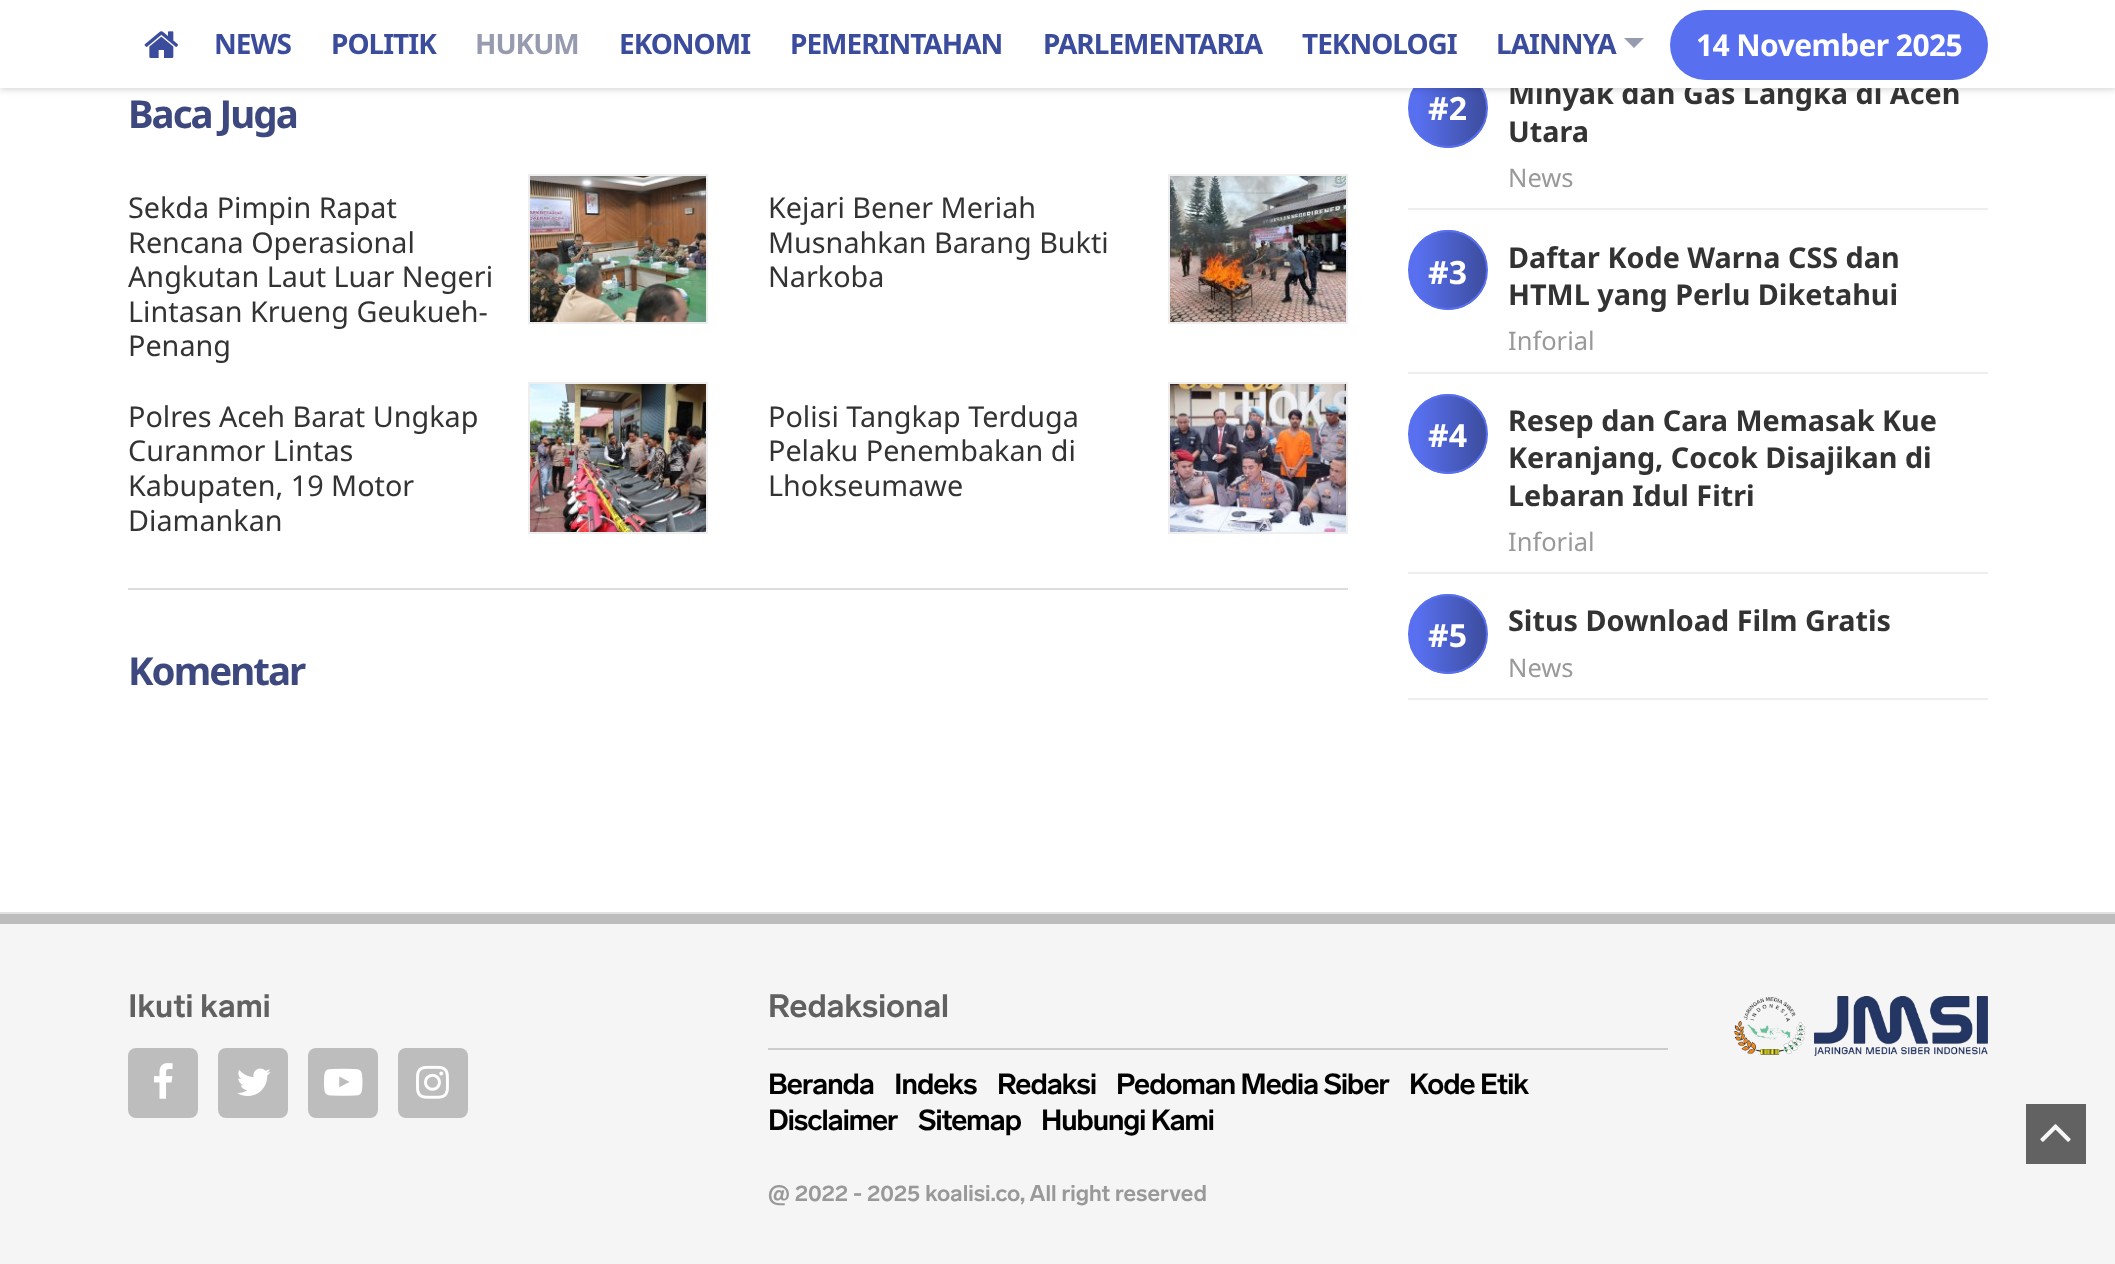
(async () => {
const canvas = document.querySelector("canvas")
canvas.width = 2115
canvas.height = 1264
const c = canvas.getContext("2d")
c.miterLimit = 4
c.fontKerning = "normal"
function T(s,x,y){c.fillText(s,x,y)}
function R(x,y,w,h){c.fillRect(x,y,w,h)}
function Q(x,y,w,h,r){c.beginPath();c.roundRect(x,y,w,h,r);c.fill()}
async function I(src,x,y,w,h){const img=new Image();img.src=src;await img.decode();c.drawImage(img,x,y,w,h)}
let gradient, path
c.fillStyle="#fff"
R(0,0,2115,1264)
c.save()
c.beginPath()
c.roundRect(1408,68,80,80,40)
c.clip()
gradient = c.createLinearGradient(1486,69,1410,69)
gradient.addColorStop(0,"#3c4c9d")
gradient.addColorStop(.9,"#5870f0")
c.fillStyle = gradient
R(1410,88,76,60)
c.restore()
c.beginPath()
c.arc(1448,108,39,0,7)
c.strokeStyle="#5870f0"
c.lineWidth=2
c.stroke()
c.fillStyle="#00000026"
c.filter="blur(3px)"
c.beginPath()
c.rect(0,2,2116,88)
c.fill()
c.filter="none"
c.font="bold 28.75px Noto Sans"
c.fillStyle="#333"
T("Minyak dan Gas Langka di Aceh",1508,104)
c.fillStyle="#fff"
R(0,0,2115,88)
await I("1.png",144,31,35,27)
c.letterSpacing="-1px"
c.font="bold 28px Noto Sans"
c.fillStyle="#3c4c9d"
T("NEWS",214,54)
T("POLITIK",331,54)
c.fillStyle="#969bb0"
T("HUKUM",475,54)
c.fillStyle="#3c4c9d"
T("EKONOMI",619,54)
T("PEMERINTAHAN",790,54)
T("PARLEMENTARIA",1043,54)
T("TEKNOLOGI",1302,54)
T("LAINNYA",1496,54)
c.fillStyle="#969bb0"
path = new Path2D("M1624 38h20l-10 10z")
c.fill(path)
c.fillStyle="#5870f0"
Q(1670,10,318,70,35)
c.letterSpacing="-0.6px"
c.font="bold 30px Noto Sans"
c.fillStyle="#fff"
T("14 November 2025",1696,56)
c.fillStyle="#ddd"
R(128,588,1220,2)
c.letterSpacing="-2px"
c.font="bold 38.5px Noto Sans"
c.fillStyle="#3d487f"
T("Baca Juga",128,128)
c.letterSpacing="0px"
c.font="28.75px Noto Sans"
c.fillStyle="#333"
T("Sekda Pimpin Rapat",128,218)
T("Rencana Operasional",128,253)
T("Angkutan Laut Luar Negeri",128,287)
T("Lintasan Krueng Geukueh-",128,322)
T("Penang",128,356)
c.fillStyle="#eee"
R(528,174,180,150)
await I("2.png",530,176,176,146)
c.fillStyle="#333"
T("Kejari Bener Meriah",768,218)
T("Musnahkan Barang Bukti",768,253)
T("Narkoba",768,287)
c.fillStyle="#eee"
R(1168,174,180,150)
await I("3.png",1170,176,176,146)
c.fillStyle="#333"
T("Polres Aceh Barat Ungkap",128,427)
T("Curanmor Lintas",128,461)
T("Kabupaten, 19 Motor",128,496)
T("Diamankan",128,531)
c.fillStyle="#eee"
R(528,382,180,152)
await I("4.png",530,384,176,148)
c.fillStyle="#333"
T("Polisi Tangkap Terduga",768,427)
T("Pelaku Penembakan di",768,461)
T("Lhokseumawe",768,496)
c.fillStyle="#eee"
R(1168,382,180,152)
await I("5.png",1170,384,176,148)
c.letterSpacing="-2px"
c.font="bold 38.5px Noto Sans"
c.fillStyle="#3d487f"
T("Komentar",128,685)
c.fillStyle="#eee"
R(1408,208,580,2)
c.letterSpacing="0px"
c.font="bold 32px Noto Sans"
c.fillStyle="#fff"
T("#2",1428,120)
c.font="bold 28.75px Noto Sans"
c.fillStyle="#333"
T("Utara",1508,142)
c.font="25.5px Noto Sans"
c.fillStyle="#999"
T("News",1508,187)
c.fillStyle="#eee"
R(1408,372,580,2)
c.save()
c.beginPath()
c.roundRect(1408,230,80,80,40)
c.clip()
gradient = c.createLinearGradient(1486,231,1410,231)
gradient.addColorStop(0,"#3c4c9d")
gradient.addColorStop(.9,"#5870f0")
c.fillStyle = gradient
R(1410,230,76,80)
c.restore()
c.beginPath()
c.arc(1448,270,39,0,7)
c.stroke()
c.font="bold 32px Noto Sans"
c.fillStyle="#fff"
T("#3",1428,284)
c.font="bold 28.75px Noto Sans"
c.fillStyle="#333"
T("Daftar Kode Warna CSS dan",1508,268)
T("HTML yang Perlu Diketahui",1508,305)
c.font="25.5px Noto Sans"
c.fillStyle="#999"
T("Inforial",1508,350)
c.fillStyle="#eee"
R(1408,572,580,2)
c.save()
c.beginPath()
c.roundRect(1408,394,80,80,40)
c.clip()
gradient = c.createLinearGradient(1486,395,1410,395)
gradient.addColorStop(0,"#3c4c9d")
gradient.addColorStop(.9,"#5870f0")
c.fillStyle = gradient
R(1410,394,76,80)
c.restore()
c.beginPath()
c.arc(1448,434,39,0,7)
c.stroke()
c.font="bold 32px Noto Sans"
c.fillStyle="#fff"
T("#4",1428,447)
c.font="bold 28.75px Noto Sans"
c.fillStyle="#333"
T("Resep dan Cara Memasak Kue",1508,431)
T("Keranjang, Cocok Disajikan di",1508,468)
T("Lebaran Idul Fitri",1508,506)
c.font="25.5px Noto Sans"
c.fillStyle="#999"
T("Inforial",1508,551)
c.fillStyle="#eee"
R(1408,698,580,2)
c.font="bold 28.75px Noto Sans"
c.fillStyle="#333"
T("Situs Download Film Gratis",1508,631)
c.save()
c.beginPath()
c.roundRect(1408,594,80,80,40)
c.clip()
gradient = c.createLinearGradient(1486,595,1410,595)
gradient.addColorStop(0,"#3c4c9d")
gradient.addColorStop(.9,"#5870f0")
c.fillStyle = gradient
R(1410,594,76,80)
c.restore()
c.beginPath()
c.arc(1448,634,39,0,7)
c.stroke()
c.font="bold 32px Noto Sans"
c.fillStyle="#fff"
T("#5",1428,647)
c.font="25.5px Noto Sans"
c.fillStyle="#999"
T("News",1508,677)
c.fillStyle="#e0e0e0"
R(0,912,2115,2)
c.fillStyle="#f5f5f5"
R(0,924,2115,340)
c.fillStyle="#bdbdbd"
R(0,914,2115,10)
c.font="bold 32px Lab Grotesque"
c.fillStyle="#616161"
T("Ikuti kami",128,1017)
c.fillStyle="#bdbdbd"
Q(128,1048,70,70,8)
await I("6.png",154,1063,19,36)
Q(218,1048,70,70,8)
await I("7.png",237,1068,34,28)
Q(308,1048,70,70,8)
await I("8.png",324,1068,39,28)
Q(398,1048,70,70,8)
await I("9.png",416,1065,33,34)
c.fillStyle="#616161"
T("Redaksional",768,1017)
c.fillStyle="#ccc"
R(768,1048,900,2)
c.letterSpacing="-1px"
c.font="bold 28.75px Lab Grotesque"
c.fillStyle="#000"
T("Beranda",768,1094)
T("Indeks",894,1094)
T("Redaksi",997,1094)
T("Pedoman Media Siber",1116,1094)
T("Kode Etik",1409,1094)
T("Disclaimer",768,1130)
T("Sitemap",918,1130)
T("Hubungi Kami",1041,1130)
c.letterSpacing="0px"
c.font="bold 22.4px Lab Grotesque"
c.fillStyle="#999"
T("@ 2022 - 2025 koalisi.co, All right reserved",768,1201)
await I("10.png",1734,996,254,60)
c.fillStyle="#626262"
R(2026,1104,60,60)
await I("11.png",2040,1124,31,18)
})()
